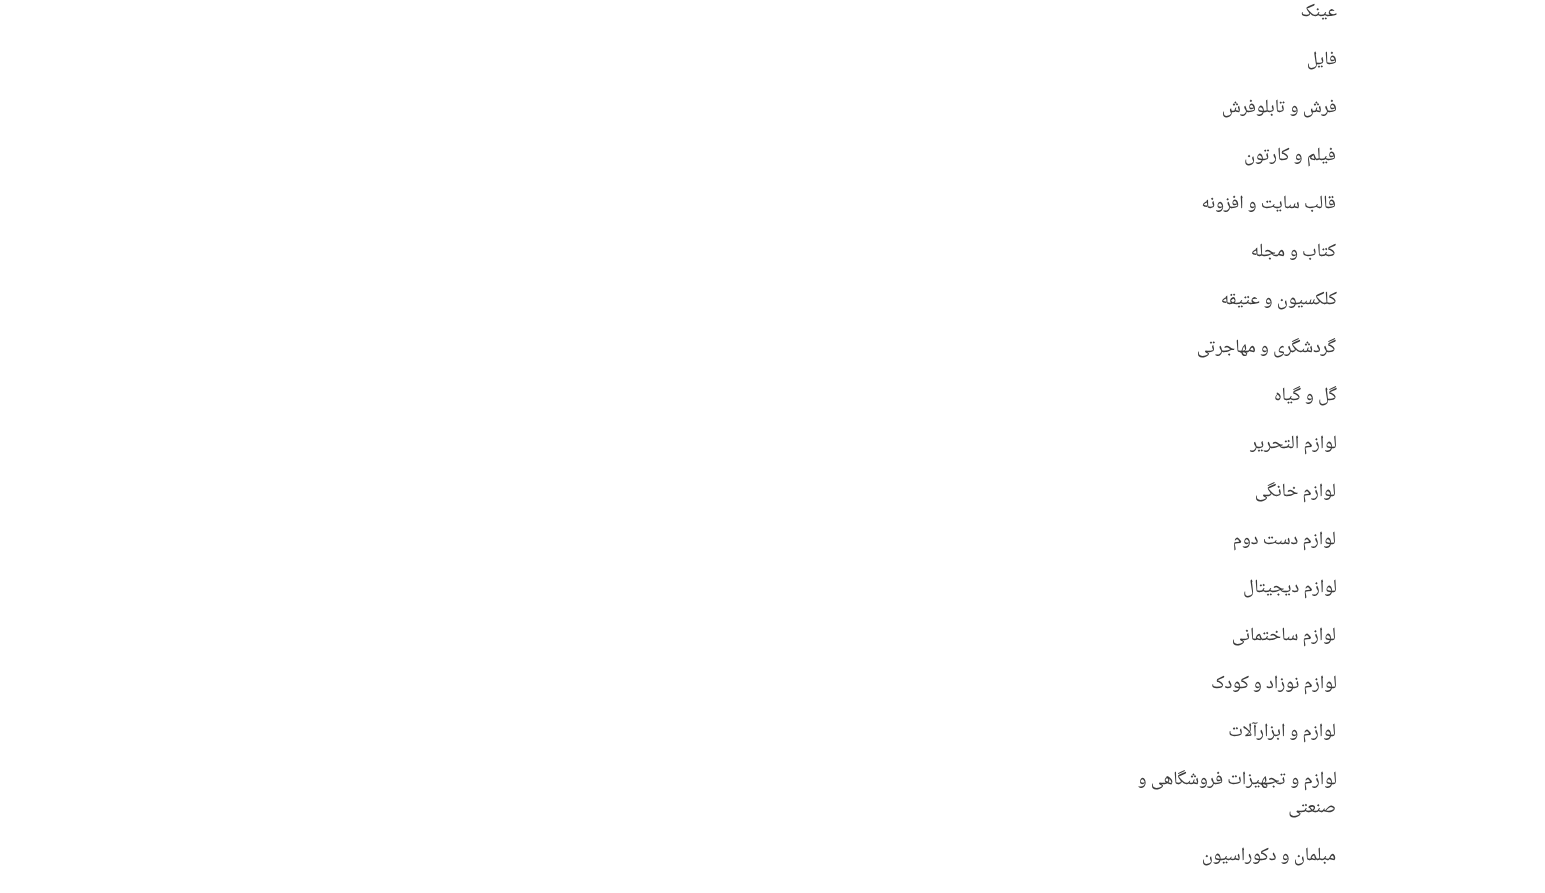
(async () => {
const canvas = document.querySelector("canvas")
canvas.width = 1545
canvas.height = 893
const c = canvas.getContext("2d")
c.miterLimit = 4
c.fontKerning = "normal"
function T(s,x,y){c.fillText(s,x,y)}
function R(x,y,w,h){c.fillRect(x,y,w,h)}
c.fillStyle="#fff"
R(0,0,1545,893)
c.direction="rtl"
c.font="16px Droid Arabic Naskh"
c.fillStyle="#3c3c3c"
T("عینک",1337,16)
T("فایل",1337,64)
T("فرش و تابلوفرش",1337,112)
T("فیلم و کارتون",1336,160)
T("قالب سایت و افزونه",1336,208)
T("کتاب و مجله",1336,256)
T("کلکسیون و عتیقه",1337,304)
T("گردشگری و مهاجرتی",1336,352)
T("گل و گیاه",1337,400)
T("لوازم التحریر",1337,448)
T("لوازم خانگی",1336,496)
T("لوازم دست دوم",1336,544)
T("لوازم دیجیتال",1337,592)
T("لوازم ساختمانی",1336,640)
T("لوازم نوزاد و کودک",1337,688)
T("لوازم و ابزارآلات",1336,736)
T("لوازم و تجهیزات فروشگاهی و",1337,784)
T("صنعتی",1336,812)
T("مبلمان و دکوراسیون",1336,860)
})()
